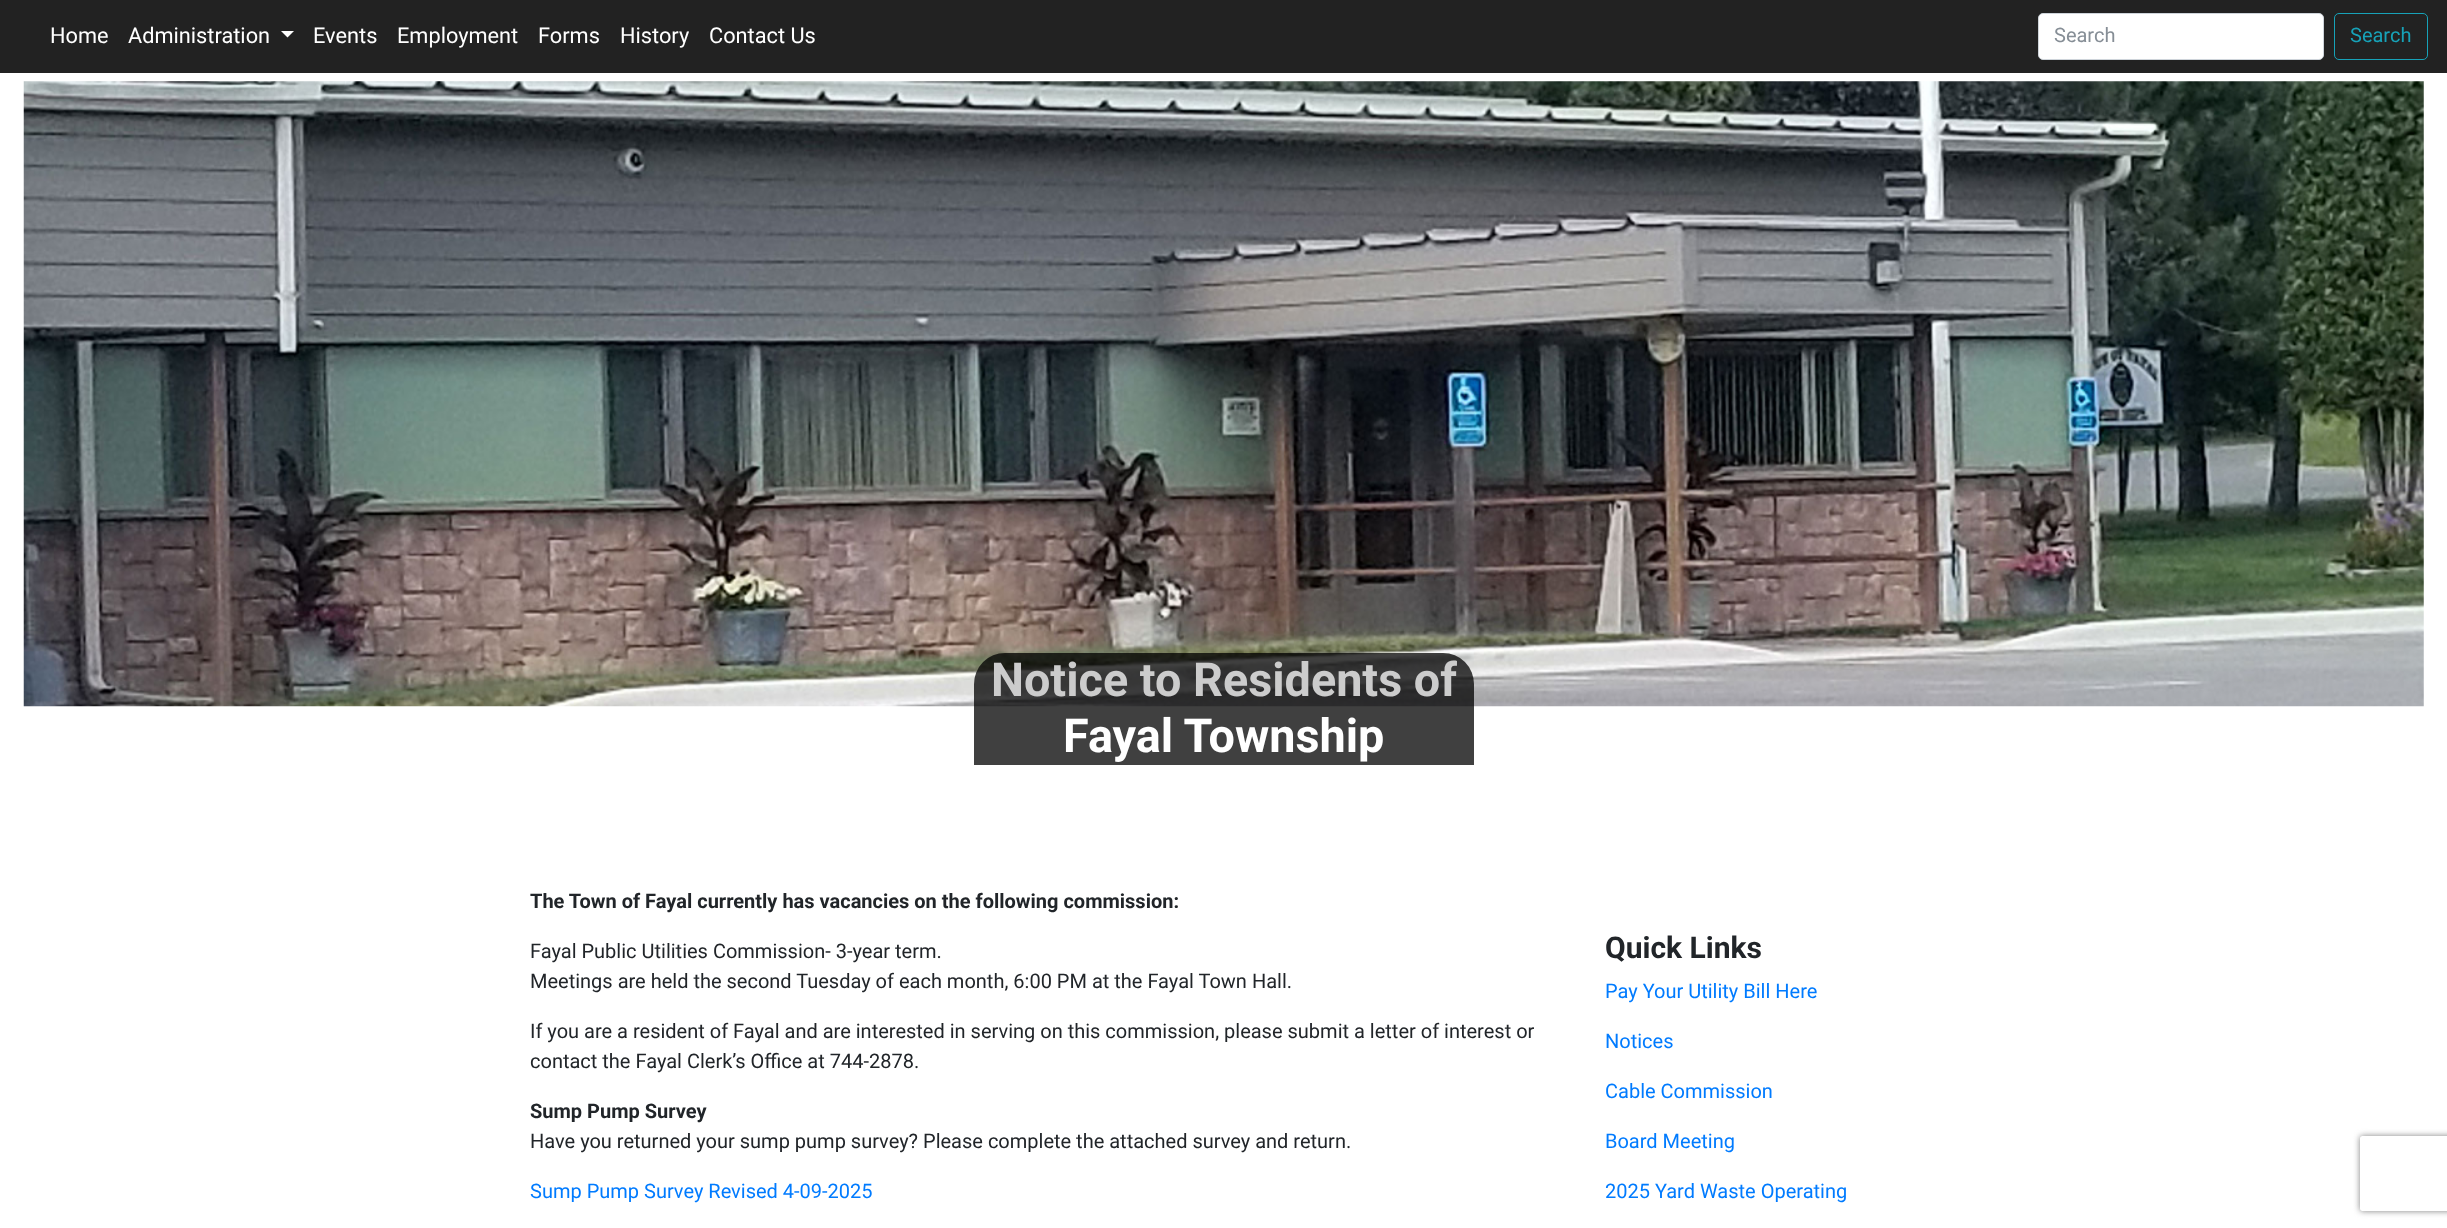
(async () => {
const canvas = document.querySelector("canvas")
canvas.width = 2447
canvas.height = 1228
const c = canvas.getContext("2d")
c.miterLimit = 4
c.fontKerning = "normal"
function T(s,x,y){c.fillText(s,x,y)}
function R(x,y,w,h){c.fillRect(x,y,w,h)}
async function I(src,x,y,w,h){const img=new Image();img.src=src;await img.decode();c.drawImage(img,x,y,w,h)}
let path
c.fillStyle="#fff"
R(0,0,2447,1228)
c.fillStyle="#222"
R(0,0,2447,73)
c.font="21.75px Roboto"
c.fillStyle="#fff"
T("Home",50,43)
T("Administration",128,43)
path = new Path2D("M281 31h13l-6.5 6.5z")
c.fill(path)
T("Events",313,43)
T("Employment",397,43)
T("Forms",538,43)
T("History",620,43)
T("Contact Us",709,43)
c.beginPath()
c.roundRect(2038.5,13.5,285,46,4.5)
c.fill()
c.strokeStyle="#ced4da"
c.stroke()
c.font="20px Roboto"
c.fillStyle="#868e96"
T("Search",2054,42)
c.beginPath()
c.roundRect(2334.5,13.5,93,46,4.5)
c.strokeStyle="#17a2b8"
c.stroke()
c.fillStyle="#17a2b8"
T("Search",2350,42)
await I("1.png",23,81,2401,626)
c.fillStyle="#000000bf"
c.beginPath()
c.roundRect(974,653,500,112,[31,31,0,0])
c.fill()
c.font="bold 46.75px Roboto"
c.fillStyle="#ccc"
T("Notice to Residents of",991,696)
c.fillStyle="#fff"
T("Fayal Township",1063,752)
c.font="bold 20px Roboto"
c.fillStyle="#212529"
T("The Town of Fayal currently has vacancies on the following commission:",530,908)
c.font="20px Roboto"
T("Fayal Public Utilities Commission- 3-year term.",530,958)
T("Meetings are held the second Tuesday of each month, 6:00 PM at the Fayal Town Hall.",530,988)
T("If you are a resident of Fayal and are interested in serving on this commission, please submit a letter of interest or",530,1038)
T("contact the Fayal Clerk’s Office at 744-2878.",530,1068)
c.font="bold 20px Roboto"
T("Sump Pump Survey",530,1118)
c.font="20px Roboto"
T("Have you returned your sump pump survey? Please complete the attached survey and return.",530,1148)
c.fillStyle="#007bff"
T("Sump Pump Survey Revised 4-09-2025",530,1198)
c.font="bold 30px Roboto"
c.fillStyle="#212529"
T("Quick Links",1605,958)
c.font="20px Roboto"
c.fillStyle="#007bff"
T("Pay Your Utility Bill Here",1605,998)
T("Notices",1605,1048)
T("Cable Commission",1605,1098)
T("Board Meeting",1605,1148)
T("2025 Yard Waste Operating",1605,1198)
c.save()
path = new Path2D("M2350 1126h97v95h-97zm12.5 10h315c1.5 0 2.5 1 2.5 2.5v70c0 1.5-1 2.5-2.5 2.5h-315c-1.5 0-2.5-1-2.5-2.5v-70c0-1.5 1-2.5 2.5-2.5z")
c.clip(path,"evenodd")
c.fillStyle="#808080"
c.filter="blur(3px)"
c.beginPath()
c.roundRect(2360,1136,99,75,2.5)
c.fill()
c.filter="none"
c.restore()
})()
